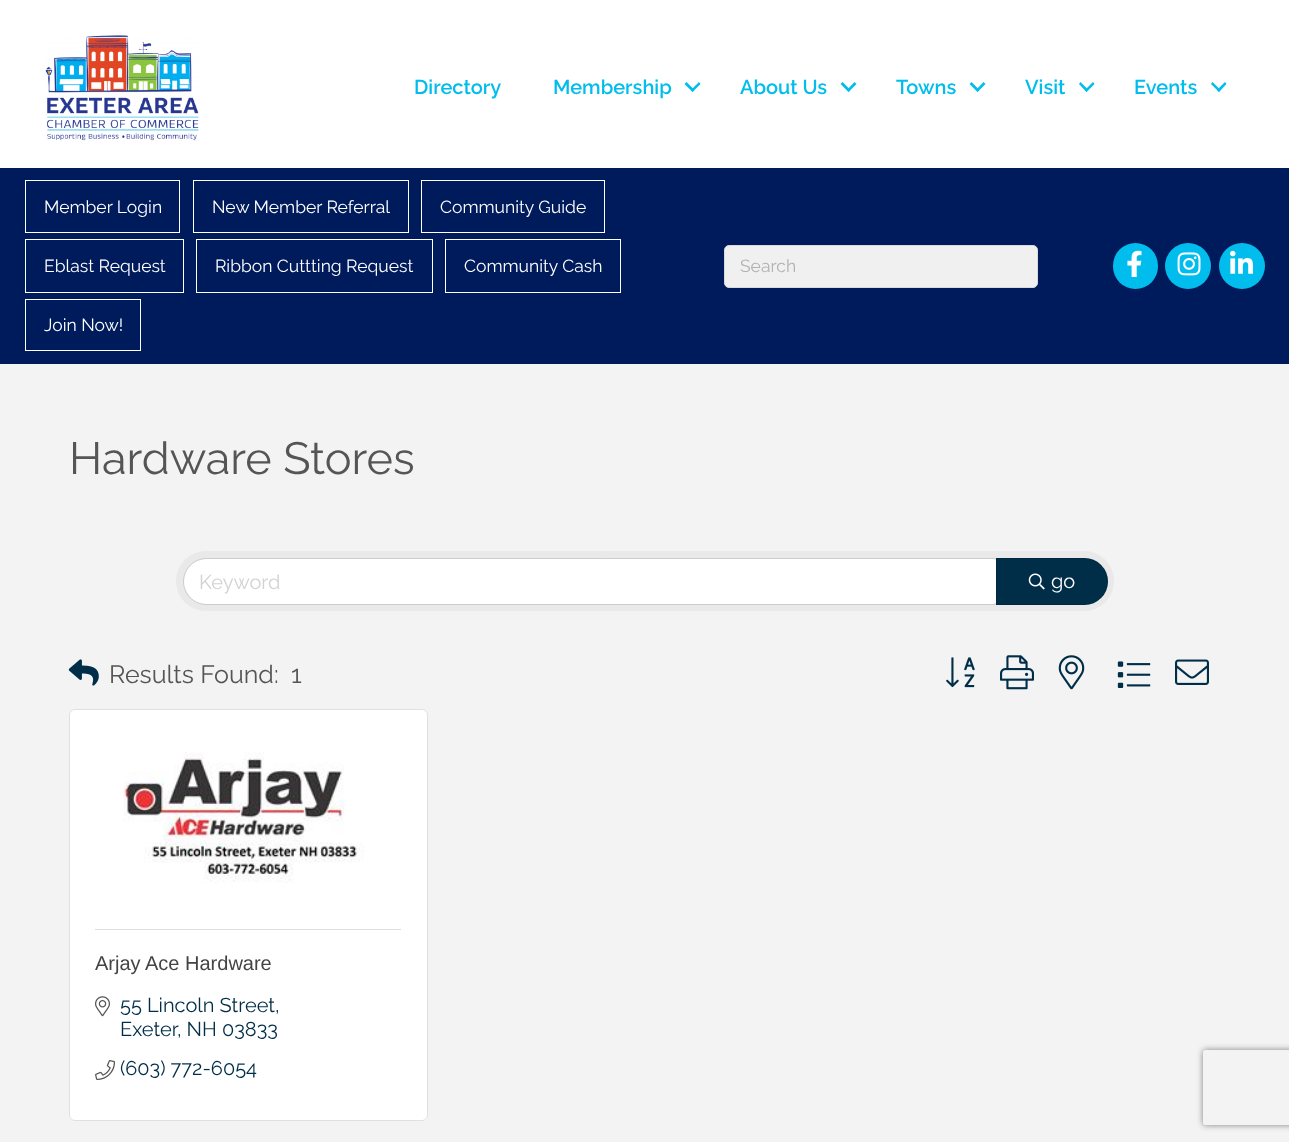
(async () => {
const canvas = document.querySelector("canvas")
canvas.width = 1289
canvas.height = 1142
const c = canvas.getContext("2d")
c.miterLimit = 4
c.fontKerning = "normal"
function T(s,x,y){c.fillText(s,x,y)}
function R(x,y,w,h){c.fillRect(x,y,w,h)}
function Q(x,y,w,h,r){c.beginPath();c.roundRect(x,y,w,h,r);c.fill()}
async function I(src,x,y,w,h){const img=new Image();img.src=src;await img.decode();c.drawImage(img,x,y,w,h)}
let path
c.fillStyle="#fff"
R(0,0,1289,1142)
await I("1.png",45,35,154,106)
c.font="600 20px Raleway"
c.fillStyle="#00bded"
T("Directory",414,94)
T("Membership",553,94)
path = new Path2D("M699 82l1.5 2l-8 8l-1.5-2z")
c.fill(path)
path = new Path2D("M686.5 82l8 8l-2 2l-8-8z")
c.fill(path)
T("About Us",740,94)
path = new Path2D("M854.5 82l2 2l-8 8l-1.5-2z")
c.fill(path)
path = new Path2D("M842.5 82l8 8l-2 2l-8-8z")
c.fill(path)
T("Towns",896,94)
path = new Path2D("M983.5 82l2 2l-8 8l-1.5-2z")
c.fill(path)
path = new Path2D("M971.5 82l8 8l-2 2l-8-8z")
c.fill(path)
T("Visit",1025,94)
path = new Path2D("M1093 82l1.5 2l-8 8l-1.5-2z")
c.fill(path)
path = new Path2D("M1080.5 82l8 8l-2 2l-7.5-8z")
c.fill(path)
T("Events",1134,94)
path = new Path2D("M1225 82l1.5 2l-7.5 8l-2-2z")
c.fill(path)
path = new Path2D("M1212.5 82l8 8l-1.5 2l-8-8z")
c.fill(path)
c.fillStyle="#001b5b"
R(0,168,1289,196)
c.strokeStyle="#fff"
c.strokeRect(25.5,180.5,154,52)
c.font="17.5px Raleway"
c.fillStyle="#fff"
T("Member Login",44,213)
c.strokeRect(193.5,180.5,215,52)
T("New Member Referral",212,213)
c.strokeRect(421.5,180.5,183,52)
T("Community Guide",440,213)
c.strokeRect(25.5,239.5,158,53)
T("Eblast Request",44,272)
c.strokeRect(196.5,239.5,236,53)
T("Ribbon Cuttting Request",215,272)
c.strokeRect(445.5,239.5,175,53)
T("Community Cash",464,272)
c.strokeRect(25.5,299.5,115,51)
T("Join Now!",44,331)
c.fillStyle="#f0f0f0"
c.beginPath()
c.roundRect(724.5,245.5,313,42,4.5)
c.fill()
c.strokeStyle="#dadada"
c.stroke()
c.fillStyle="#b2b2b2"
T("Search",740,272)
c.fillStyle="#00bded"
Q(1113,243,45,46,22.5)
await I("2.png",1127,250,15,27)
c.beginPath()
c.arc(1188,266,23,0,7)
c.fill()
await I("3.png",1177,252,24,24)
c.beginPath()
c.arc(1242,266,23,0,7)
c.fill()
await I("4.png",1230,250,23,24)
c.fillStyle="#f3f3f3"
R(0,364,1289,778)
c.font="45px Raleway"
c.fillStyle="#555"
T("Hardware Stores",69,474)
c.fillStyle="#e9e9e9"
Q(176,551,938,60,30)
c.fillStyle="#fff"
c.beginPath()
c.roundRect(184,559,812,45,[22.5,2.5,2.5,22.5])
c.fill()
c.beginPath()
c.roundRect(183.5,558.5,814,46,[23,3.5,3.5,23])
c.strokeStyle="#0000001f"
c.stroke()
c.font="20px Raleway"
c.fillStyle="#d2d2d2"
T("Keyword",199,589)
c.fillStyle="#002e48"
c.beginPath()
c.roundRect(996,558,112,47,[0,23.5,23.5,0])
c.fill()
c.beginPath()
c.roundRect(996.5,558.5,111,46,[0,23,23,0])
c.stroke()
await I("5.png",1028,573,17,17)
c.fillStyle="#fff"
T("go",1051,588)
await I("6.png",68,659,31,27)
c.font="25px Raleway"
c.fillStyle="#555"
T("Results Found:",109,683)
T("1",291,683)
await I("7.png",946,657,29,31)
await I("8.png",1000,655,34,35)
await I("9.png",1058,655,27,35)
await I("10.png",1117,661,34,27)
await I("11.png",1175,659,34,26)
c.fillStyle="#fff"
Q(69,709,359,412,6)
c.beginPath()
c.roundRect(69.5,709.5,358,411,5.5)
c.stroke()
await I("12.png",123,752,241,131)
c.fillStyle="#dfdfdf"
R(95,929,306,1)
c.font="20px Liberation Sans"
c.fillStyle="#444"
T("Arjay Ace Hardware",95,970)
await I("13.png",95,996,15,21)
c.font="20px Raleway"
c.fillStyle="#002e48"
T("55 Lincoln Street,",120,1012)
T("Exeter",120,1036)
T(", NH 03833",177,1036)
await I("14.png",95,1060,20,20)
T("(603) 772-6054",120,1075)
c.save()
path = new Path2D("M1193 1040h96v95h-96zm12.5 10h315c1.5 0 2.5 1 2.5 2.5v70c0 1.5-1 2.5-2.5 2.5h-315c-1.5 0-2.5-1-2.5-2.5v-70c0-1.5 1-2.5 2.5-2.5z")
c.clip(path,"evenodd")
c.fillStyle="#808080"
c.filter="blur(3px)"
c.beginPath()
c.roundRect(1203,1050,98,75,2.5)
c.fill()
c.filter="none"
c.restore()
})()
